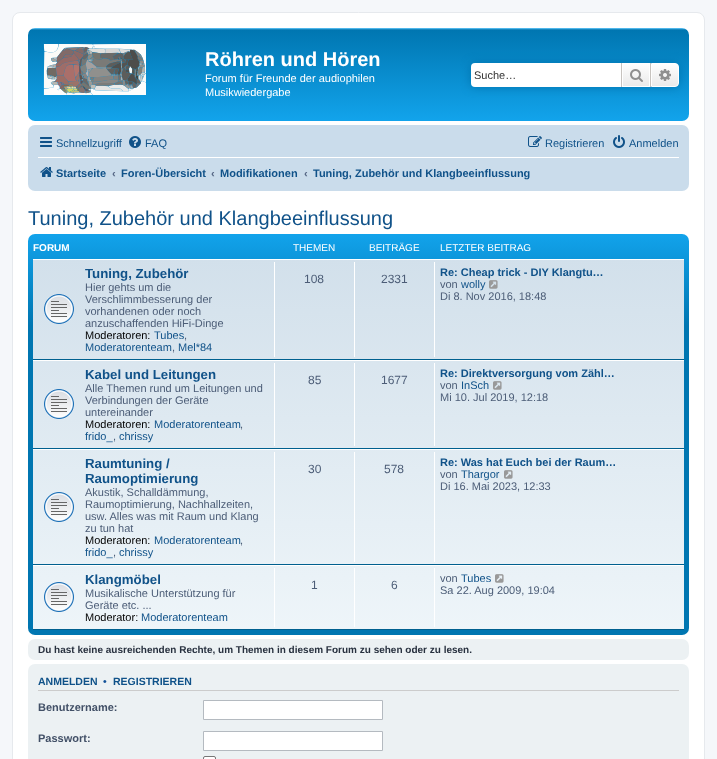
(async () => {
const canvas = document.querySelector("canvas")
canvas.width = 717
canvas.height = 759
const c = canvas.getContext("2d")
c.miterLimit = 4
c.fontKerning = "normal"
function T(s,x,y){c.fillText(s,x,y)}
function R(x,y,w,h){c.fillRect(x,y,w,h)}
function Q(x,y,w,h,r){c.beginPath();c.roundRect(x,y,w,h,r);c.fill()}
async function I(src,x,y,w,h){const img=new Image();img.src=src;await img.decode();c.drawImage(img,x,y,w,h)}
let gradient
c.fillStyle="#f5f7fa"
R(0,0,717,759)
c.fillStyle="#fff"
c.beginPath()
c.roundRect(12.5,12.5,692,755,7.5)
c.fill()
c.strokeStyle="#e6e9ed"
c.stroke()
gradient = c.createLinearGradient(359,28,359,121)
gradient.addColorStop(0,"#6aceff")
gradient.addColorStop(.02,"#0076b1")
gradient.addColorStop(.99,"#12a3eb")
gradient.addColorStop(1,"#12a3eb")
c.fillStyle = gradient
Q(28,28,661,93,7)
await I("1.png",43,44,103,51)
c.font="bold 20px Liberation Sans"
c.fillStyle="#fff"
T("Röhren und Hören",205,66)
c.font="11px Liberation Sans"
T("Forum für Freunde der audiophilen",205,82)
T("Musikwiedergabe",205,96)
c.fillStyle="#0075b0"
c.filter="blur(5px)"
c.beginPath()
c.roundRect(471,63,208,24,4)
c.fill()
c.filter="none"
c.fillStyle="#fff"
c.beginPath()
c.roundRect(471,63,150,24,[4,0,0,4])
c.fill()
c.fillStyle="#333"
T("Suche…",474,79)
gradient = c.createLinearGradient(636,63,636,87)
gradient.addColorStop(0,"#fff")
gradient.addColorStop(1,"#e9e9e9")
c.fillStyle = gradient
R(623,64,26,22)
c.strokeStyle="#fff"
c.strokeRect(622.5,63.5,27,23)
c.fillStyle="#c7c3bf"
R(650,63,1,24)
R(621,63,1,24)
await I("2.png",630,69,13,13)
gradient = c.createLinearGradient(665,63,665,87)
gradient.addColorStop(0,"#fff")
gradient.addColorStop(1,"#e9e9e9")
c.fillStyle = gradient
c.beginPath()
c.roundRect(651.5,63.5,27,23,[0,3.5,3.5,0])
c.fill()
c.stroke()
await I("3.png",659,69,12,12)
c.fillStyle="#cadceb"
Q(28,125,661,66,7)
await I("4.png",40,137,12,10)
c.fillStyle="#105289"
T("Schnellzugriff",56,147)
await I("5.png",129,136,12,12)
T("FAQ",145,147)
await I("6.png",528,136,14,11)
T("Registrieren",545,147)
await I("7.png",613,135,12,13)
T("Anmelden",629,147)
c.fillStyle="#fff"
R(38,157,641,1)
await I("8.png",40,167,13,10)
c.font="bold 11px Liberation Sans"
c.fillStyle="#105289"
T("Startseite",56,177)
c.fillStyle="#536482"
T("‹",112,177)
c.fillStyle="#105289"
T("Foren-Übersicht",121,177)
c.fillStyle="#536482"
T("‹",211,177)
c.fillStyle="#105289"
T("Modifikationen",220,177)
c.fillStyle="#536482"
T("‹",304,177)
c.fillStyle="#105289"
T("Tuning, Zubehör und Klangbeeinflussung",313,177)
c.font="20px Liberation Sans"
T("Tuning, Zubehör und Klangbeeinflussung",28,225)
gradient = c.createLinearGradient(359,234,359,635)
gradient.addColorStop(0,"#6aceff")
gradient.addColorStop(0,"#12a3eb")
gradient.addColorStop(.23,"#0076b1")
gradient.addColorStop(1,"#0076b1")
c.fillStyle = gradient
Q(28,234,661,401,7)
c.font="bold 10px Liberation Sans"
c.fillStyle="#fff"
T("FORUM",33,251)
c.font="10px Liberation Sans"
T("THEMEN",293,251)
T("BEITRÄGE",369,251)
T("LETZTER BEITRAG",440,251)
gradient = c.createLinearGradient(359,259,359,630)
gradient.addColorStop(0,"#d2e0eb")
gradient.addColorStop(1,"#eef5f9")
c.fillStyle = gradient
R(33,260,651,369)
c.fillStyle="#fff"
R(33,259,651,1)
c.fillStyle="#00608f"
R(33,359,651,1)
await I("9.png",44,294,30,30)
c.font="bold 13.25px Liberation Sans"
c.fillStyle="#105289"
T("Tuning, Zubehör",85,278)
c.font="11px Liberation Sans"
c.fillStyle="#4c5d77"
T("Hier gehts um die",85,291)
T("Verschlimmbesserung der",85,303)
T("vorhandenen oder noch",85,315)
T("anzuschaffenden HiFi-Dinge",85,327)
c.fillStyle="#000"
T("Moderatoren:",85,339)
c.fillStyle="#105289"
T("Tubes",154,339)
c.fillStyle="#4c5d77"
T(",",184,339)
c.fillStyle="#105289"
T("Moderatorenteam",85,351)
c.fillStyle="#4c5d77"
T(",",172,351)
c.fillStyle="#105289"
T("Mel*84",178,351)
c.fillStyle="#fff"
R(274,262,1,95)
c.font="12px Liberation Sans"
c.fillStyle="#4c5d77"
T("108",304,283)
c.fillStyle="#fff"
R(354,262,1,95)
c.fillStyle="#4c5d77"
T("2331",381,283)
c.fillStyle="#fff"
R(434,262,1,95)
c.font="bold 11px Liberation Sans"
c.fillStyle="#105289"
T("Re: Cheap trick - DIY Klangtu…",440,276)
c.font="11px Liberation Sans"
c.fillStyle="#4c5d77"
T("von",440,288)
c.fillStyle="#105289"
T("wolly",461,288)
await I("10.png",489,280,9,9)
c.fillStyle="#4c5d77"
T("Di 8. Nov 2016, 18:48",440,300)
c.fillStyle="#fff"
R(33,360,651,1)
c.fillStyle="#00608f"
R(33,448,651,1)
await I("11.png",44,389,30,30)
c.font="bold 13.25px Liberation Sans"
c.fillStyle="#105289"
T("Kabel und Leitungen",85,379)
c.font="11px Liberation Sans"
c.fillStyle="#4c5d77"
T("Alle Themen rund um Leitungen und",85,392)
T("Verbindungen der Geräte",85,404)
T("untereinander",85,416)
c.fillStyle="#000"
T("Moderatoren:",85,428)
c.fillStyle="#105289"
T("Moderatorenteam",154,428)
c.fillStyle="#4c5d77"
T(",",240,428)
c.fillStyle="#105289"
T("frido_",85,440)
c.fillStyle="#4c5d77"
T(",",113,440)
c.fillStyle="#105289"
T("chrissy",119,440)
c.fillStyle="#fff"
R(274,363,1,83)
c.font="12px Liberation Sans"
c.fillStyle="#4c5d77"
T("85",308,384)
c.fillStyle="#fff"
R(354,363,1,83)
c.fillStyle="#4c5d77"
T("1677",381,384)
c.fillStyle="#fff"
R(434,363,1,83)
c.font="bold 11px Liberation Sans"
c.fillStyle="#105289"
T("Re: Direktversorgung vom Zähl…",440,377)
c.font="11px Liberation Sans"
c.fillStyle="#4c5d77"
T("von",440,389)
c.fillStyle="#105289"
T("InSch",461,389)
await I("12.png",493,381,9,9)
c.fillStyle="#4c5d77"
T("Mi 10. Jul 2019, 12:18",440,401)
c.fillStyle="#fff"
R(33,449,651,1)
c.fillStyle="#00608f"
R(33,564,651,1)
await I("13.png",44,492,30,30)
c.font="bold 13.25px Liberation Sans"
c.fillStyle="#105289"
T("Raumtuning /",85,468)
T("Raumoptimierung",85,483)
c.font="11px Liberation Sans"
c.fillStyle="#4c5d77"
T("Akustik, Schalldämmung,",85,496)
T("Raumoptimierung, Nachhallzeiten,",85,508)
T("usw. Alles was mit Raum und Klang",85,520)
T("zu tun hat",85,532)
c.fillStyle="#000"
T("Moderatoren:",85,544)
c.fillStyle="#105289"
T("Moderatorenteam",154,544)
c.fillStyle="#4c5d77"
T(",",240,544)
c.fillStyle="#105289"
T("frido_",85,556)
c.fillStyle="#4c5d77"
T(",",113,556)
c.fillStyle="#105289"
T("chrissy",119,556)
c.fillStyle="#fff"
R(274,452,1,110)
c.font="12px Liberation Sans"
c.fillStyle="#4c5d77"
T("30",308,473)
c.fillStyle="#fff"
R(354,452,1,110)
c.fillStyle="#4c5d77"
T("578",384,473)
c.fillStyle="#fff"
R(434,452,1,110)
c.font="bold 11px Liberation Sans"
c.fillStyle="#105289"
T("Re: Was hat Euch bei der Raum…",440,466)
c.font="11px Liberation Sans"
c.fillStyle="#4c5d77"
T("von",440,478)
c.fillStyle="#105289"
T("Thargor",461,478)
await I("14.png",504,470,9,9)
c.fillStyle="#4c5d77"
T("Di 16. Mai 2023, 12:33",440,490)
c.fillStyle="#fff"
R(33,565,651,1)
c.fillStyle="#00608f"
R(33,629,651,1)
await I("15.png",44,582,30,30)
c.font="bold 13.25px Liberation Sans"
c.fillStyle="#105289"
T("Klangmöbel",85,584)
c.font="11px Liberation Sans"
c.fillStyle="#4c5d77"
T("Musikalische Unterstützung für",85,597)
T("Geräte etc. ...",85,609)
c.fillStyle="#000"
T("Moderator:",85,621)
c.fillStyle="#105289"
T("Moderatorenteam",141,621)
c.fillStyle="#fff"
R(274,568,1,59)
c.font="12px Liberation Sans"
c.fillStyle="#4c5d77"
T("1",311,589)
c.fillStyle="#fff"
R(354,568,1,59)
c.fillStyle="#4c5d77"
T("6",391,589)
c.fillStyle="#fff"
R(434,568,1,59)
c.font="11px Liberation Sans"
c.fillStyle="#4c5d77"
T("von",440,582)
c.fillStyle="#105289"
T("Tubes",461,582)
await I("16.png",495,574,9,9)
c.fillStyle="#4c5d77"
T("Sa 22. Aug 2009, 19:04",440,594)
c.fillStyle="#ecf1f3"
Q(28,639,661,21,7)
c.font="bold 10px Liberation Sans"
c.fillStyle="#28313f"
T("Du hast keine ausreichenden Rechte, um Themen in diesem Forum zu sehen oder zu lesen.",38,653)
c.fillStyle="#ecf1f3"
Q(28,664,661,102,7)
c.fillStyle="#ccc"
R(38,690,641,1)
c.font="bold 10.5px Liberation Sans"
c.fillStyle="#105289"
T("ANMELDEN",38,685)
c.fillStyle="#115098"
T("•",103,685)
c.fillStyle="#105289"
T("REGISTRIEREN",113,685)
c.font="bold 11px Liberation Sans"
c.fillStyle="#425067"
T("Benutzername:",38,711)
c.fillStyle="#fff"
c.beginPath()
c.rect(203.5,700.5,179,19)
c.fill()
c.strokeStyle="#b4bac0"
c.stroke()
c.fillStyle="#425067"
T("Passwort:",38,742)
c.fillStyle="#fff"
c.beginPath()
c.rect(203.5,731.5,179,19)
c.fill()
c.stroke()
c.beginPath()
c.roundRect(203.5,756.5,12,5,1.5)
c.fill()
c.strokeStyle="#767676"
c.stroke()
})()
